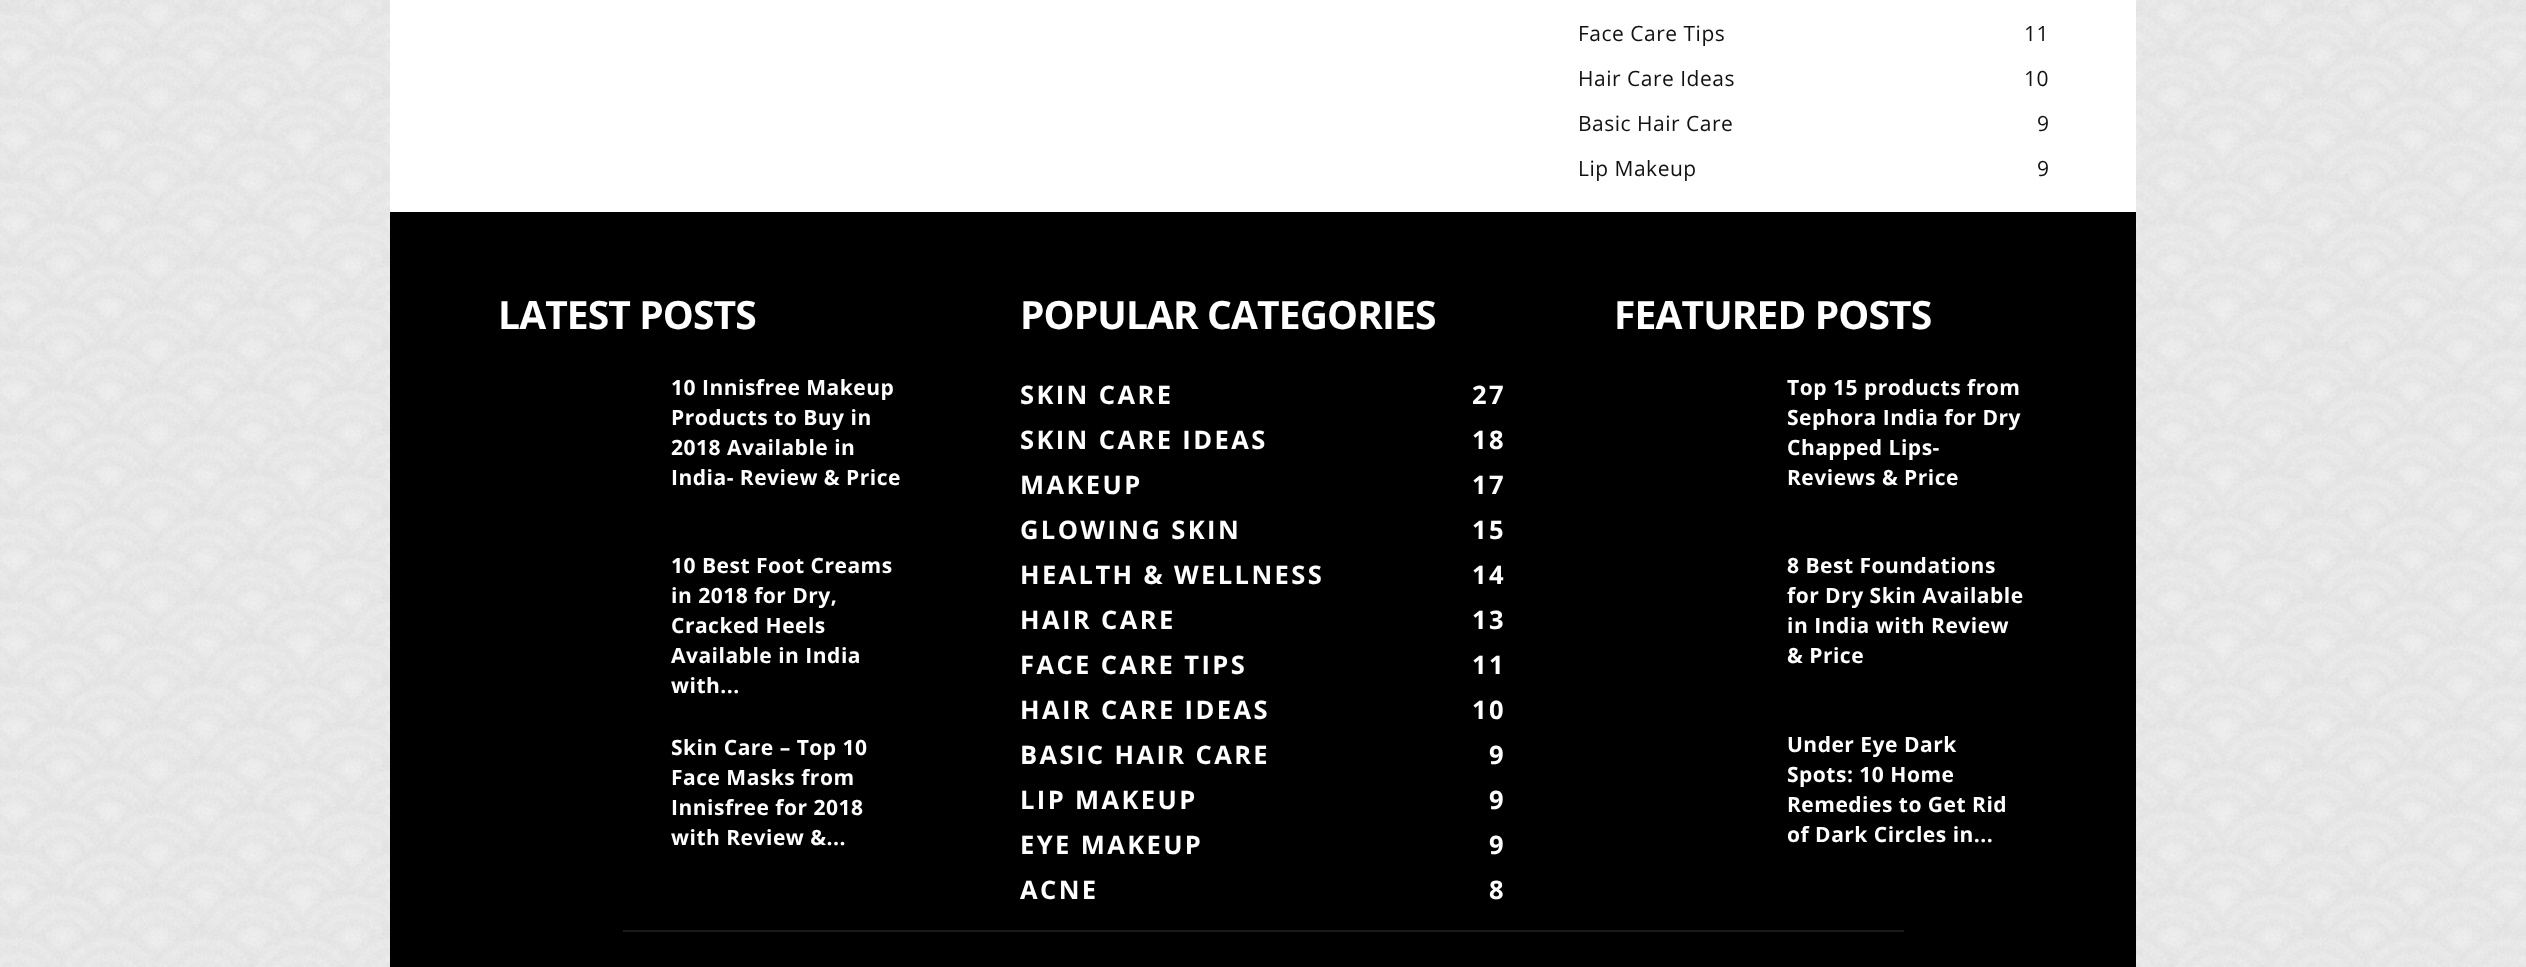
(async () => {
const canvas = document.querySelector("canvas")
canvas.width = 2526
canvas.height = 967
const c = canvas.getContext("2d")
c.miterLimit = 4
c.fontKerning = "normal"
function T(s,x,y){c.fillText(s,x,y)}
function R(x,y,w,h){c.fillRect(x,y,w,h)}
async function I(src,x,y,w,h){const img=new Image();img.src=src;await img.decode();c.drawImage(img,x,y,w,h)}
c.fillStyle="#fff"
R(0,0,2526,967)
await I("1.png",0,0,2526,967)
R(390,0,1746,212)
c.letterSpacing="0.5px"
c.font="21px Open Sans"
c.fillStyle="#111"
T("Face Care Tips",1578,41)
T("11",2024,41)
T("Hair Care Ideas",1578,86)
T("10",2024,86)
T("Basic Hair Care",1578,131)
T("9",2037,131)
T("Lip Makeup",1578,176)
T("9",2037,176)
c.fillStyle="#000"
R(390,212,1746,755)
c.letterSpacing="-0.9px"
c.font="bold 39px Open Sans"
c.fillStyle="#fff"
T("LATEST POSTS",498,329)
c.letterSpacing="0.5px"
c.font="bold 21px Open Sans"
T("10 Innisfree Makeup",671,395)
T("Products to Buy in",671,425)
T("2018 Available in",671,455)
T("India- Review & Price",671,485)
T("10 Best Foot Creams",671,573)
T("in 2018 for Dry,",671,603)
T("Cracked Heels",671,633)
T("Available in India",671,663)
T("with...",671,693)
T("Skin Care – Top 10",671,755)
T("Face Masks from",671,785)
T("Innisfree for 2018",671,815)
T("with Review &...",671,845)
c.letterSpacing="-0.9px"
c.font="bold 39px Open Sans"
T("POPULAR CATEGORIES",1020,329)
c.letterSpacing="2.4px"
c.font="bold 25.5px Open Sans"
T("SKIN CARE",1020,404)
T("27",1472,404)
T("SKIN CARE IDEAS",1020,449)
T("18",1472,449)
T("MAKEUP",1020,494)
T("17",1472,494)
T("GLOWING SKIN",1020,539)
T("15",1472,539)
T("HEALTH & WELLNESS",1020,584)
T("14",1472,584)
T("HAIR CARE",1020,629)
T("13",1472,629)
T("FACE CARE TIPS",1020,674)
T("11",1472,674)
T("HAIR CARE IDEAS",1020,719)
T("10",1472,719)
T("BASIC HAIR CARE",1020,764)
T("9",1489,764)
T("LIP MAKEUP",1020,809)
T("9",1489,809)
T("EYE MAKEUP",1020,854)
T("9",1489,854)
T("ACNE",1020,899)
T("8",1489,899)
c.letterSpacing="-0.9px"
c.font="bold 39px Open Sans"
T("FEATURED POSTS",1614,329)
c.letterSpacing="0.5px"
c.font="bold 21px Open Sans"
T("Top 15 products from",1787,395)
T("Sephora India for Dry",1787,425)
T("Chapped Lips-",1787,455)
T("Reviews & Price",1787,485)
T("8 Best Foundations",1787,573)
T("for Dry Skin Available",1787,603)
T("in India with Review",1787,633)
T("& Price",1787,663)
T("Under Eye Dark",1787,752)
T("Spots: 10 Home",1787,782)
T("Remedies to Get Rid",1787,812)
T("of Dark Circles in...",1787,842)
c.fillStyle="#1a1a1a"
R(623,930,1281,2)
})()
